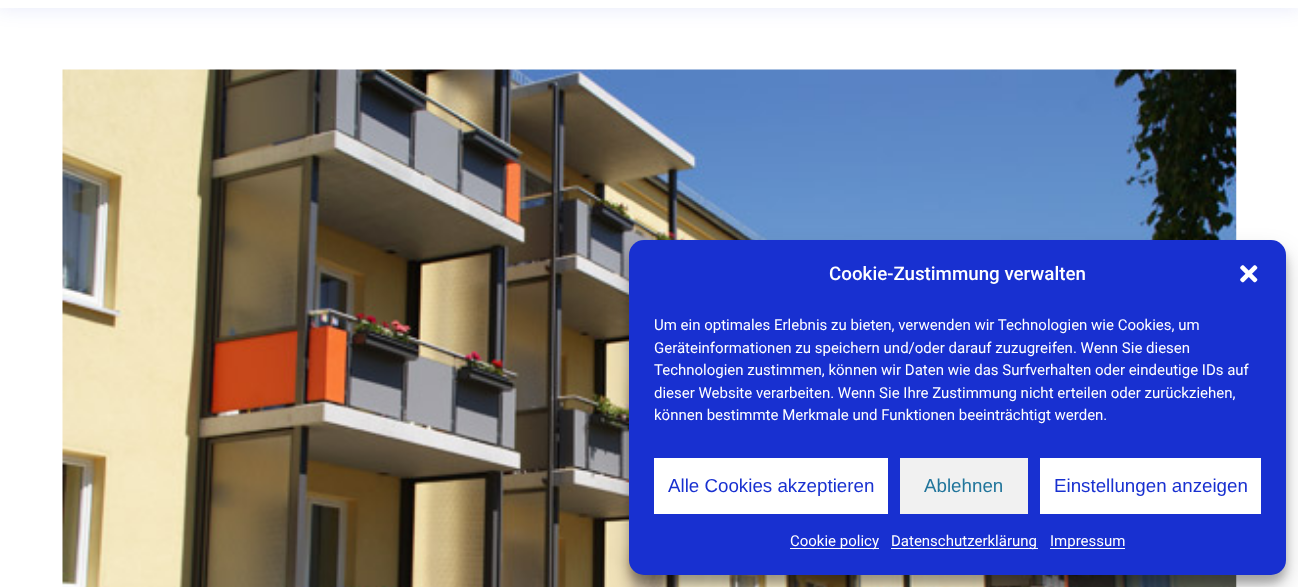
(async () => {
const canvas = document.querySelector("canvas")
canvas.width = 1298
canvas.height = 587
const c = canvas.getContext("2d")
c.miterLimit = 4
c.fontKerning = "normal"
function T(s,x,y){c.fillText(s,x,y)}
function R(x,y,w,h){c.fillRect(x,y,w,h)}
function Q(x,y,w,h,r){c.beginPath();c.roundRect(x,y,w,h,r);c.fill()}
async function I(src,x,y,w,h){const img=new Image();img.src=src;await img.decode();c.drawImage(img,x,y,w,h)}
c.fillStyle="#fff"
R(0,0,1298,587)
c.fillStyle="#1830d01a"
c.filter="blur(9.5px)"
c.beginPath()
c.rect(-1,-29,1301,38)
c.fill()
c.filter="none"
c.fillStyle="#fff"
R(0,0,1298,8)
await I("1.png",62,69,1175,518)
c.fillStyle="#0000003b"
c.filter="blur(4px)"
c.beginPath()
c.roundRect(629,248,657,335,15)
c.fill()
c.filter="none"
c.fillStyle="#00000030"
c.filter="blur(12.5px)"
c.beginPath()
c.roundRect(629,253,657,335,15)
c.fill()
c.filter="none"
c.fillStyle="#1830d0"
Q(629,240,657,335,15)
c.font="500 18.75px Roboto"
c.fillStyle="#fff"
T("Cookie-Zustimmung verwalten",829,280)
await I("2.png",1240,265,18,18)
c.font="15px Roboto"
T("Um ein optimales Erlebnis zu bieten, verwenden wir Technologien wie Cookies, um",654,330)
T("Geräteinformationen zu speichern und/oder darauf zuzugreifen. Wenn Sie diesen",654,353)
T("Technologien zustimmen, können wir Daten wie das Surfverhalten oder eindeutige IDs auf",654,375)
T("dieser Website verarbeiten. Wenn Sie Ihre Zustimmung nicht erteilen oder zurückziehen,",654,398)
T("können bestimmte Merkmale und Funktionen beeinträchtigt werden.",654,420)
R(654,458,234,56)
c.font="18.75px Liberation Sans"
c.fillStyle="#1830d0"
T("Alle Cookies akzeptieren",668,492)
c.fillStyle="#f1f1f1"
R(900,458,128,56)
c.fillStyle="#21759b"
T("Ablehnen",924,492)
c.fillStyle="#fff"
R(1040,458,221,56)
c.fillStyle="#1830d0"
T("Einstellungen anzeigen",1054,492)
c.fillStyle="#fff"
R(790,548,89,1)
c.font="15px Roboto"
T("Cookie policy",790,546)
R(891,548,147,1)
T("Datenschutzerklärung",891,546)
R(1050,548,75,1)
T("Impressum",1050,546)
})()
